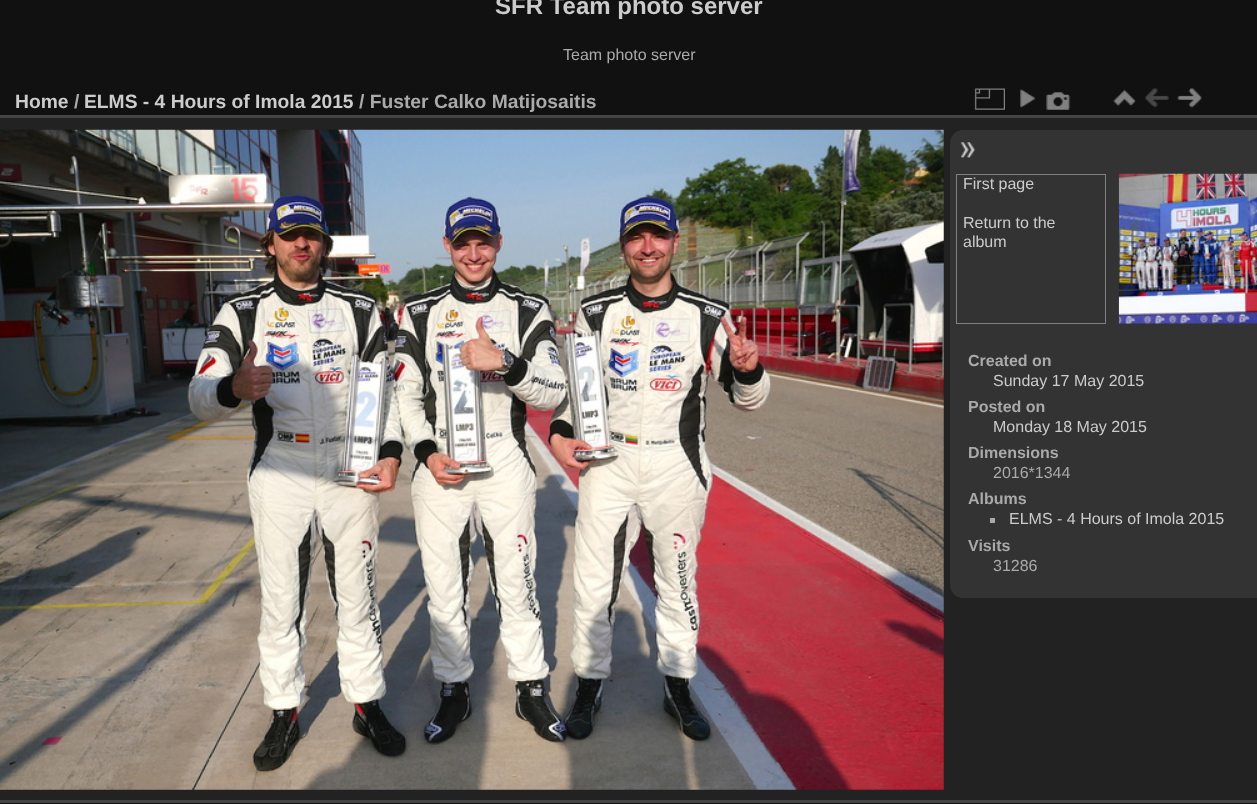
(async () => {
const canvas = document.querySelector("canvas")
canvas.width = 1257
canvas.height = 804
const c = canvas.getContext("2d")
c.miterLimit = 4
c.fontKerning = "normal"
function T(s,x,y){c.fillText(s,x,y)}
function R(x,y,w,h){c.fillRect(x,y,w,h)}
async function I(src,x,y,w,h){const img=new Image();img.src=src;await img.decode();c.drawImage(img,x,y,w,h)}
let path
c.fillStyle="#111"
R(0,0,1257,804)
c.font="bold 24px Liberation Sans"
c.fillStyle="#ccc"
T("SFR Team photo server",495,14)
c.font="16px Liberation Sans"
c.fillStyle="#aaa"
T("Team photo server",563,60)
c.fillStyle="#222"
R(0,118,1257,682)
c.fillStyle="#444"
R(0,800,1257,3)
R(0,115,1257,3)
c.font="bold 19.25px Liberation Sans"
c.fillStyle="#ccc"
T("Home",15,108)
c.fillStyle="#aaa"
T("/",74,108)
c.fillStyle="#ccc"
T("ELMS - 4 Hours of Imola 2015",84,108)
c.fillStyle="#aaa"
T("/ Fuster Calko Matijosaitis",359,108)
await I("1.png",974,88,31,22)
await I("2.png",1020,89,16,19)
await I("3.png",1046,92,25,18)
await I("4.png",1113,89,23,17)
await I("5.png",1145,88,24,20)
await I("6.png",1177,88,25,20)
await I("7.png",0,129,944,661)
c.fillStyle="#333"
path = new Path2D("M963 130h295v468h-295c-7 0-13-6-13-13v-442c0-7 6-13 13-13z")
c.fill(path)
await I("8.png",960,142,16,16)
c.strokeStyle="#808080"
c.strokeRect(956.5,174.5,149,149)
c.font="16px Liberation Sans"
c.fillStyle="#ccc"
T("First page",963,189)
T("Return to the",963,228)
T("album",963,247)
await I("9.png",1118,173,139,151)
c.font="bold 16px Liberation Sans"
c.fillStyle="#aaa"
T("Created on",968,366)
c.font="16px Liberation Sans"
c.fillStyle="#ccc"
T("Sunday 17 May 2015",993,386)
c.font="bold 16px Liberation Sans"
c.fillStyle="#aaa"
T("Posted on",968,412)
c.font="16px Liberation Sans"
c.fillStyle="#ccc"
T("Monday 18 May 2015",993,432)
c.font="bold 16px Liberation Sans"
c.fillStyle="#aaa"
T("Dimensions",968,458)
c.font="16px Liberation Sans"
T("2016*1344",993,478)
c.font="bold 16px Liberation Sans"
T("Albums",968,504)
R(990,518,5,5)
c.font="16px Liberation Sans"
c.fillStyle="#ccc"
T("ELMS - 4 Hours of Imola 2015",1009,524)
c.font="bold 16px Liberation Sans"
c.fillStyle="#aaa"
T("Visits",968,551)
c.font="16px Liberation Sans"
T("31286",993,571)
})()
